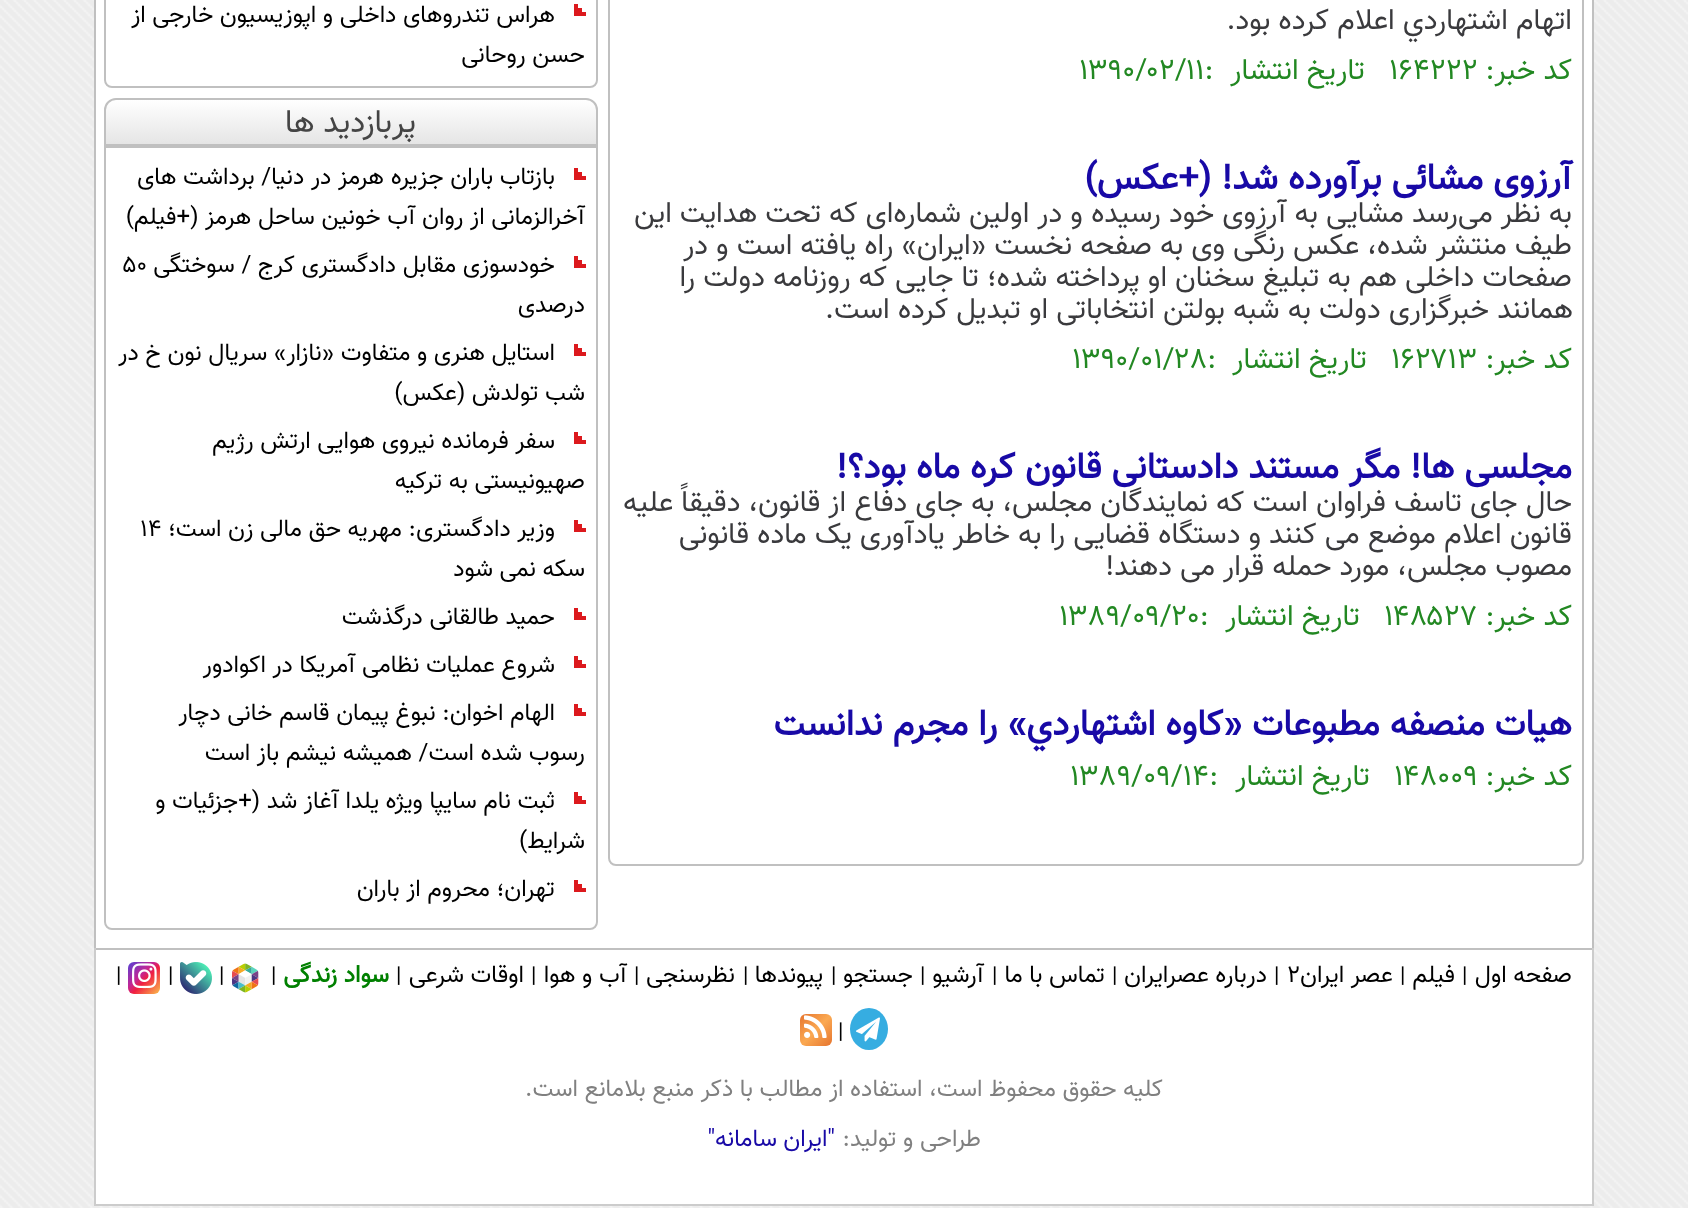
(async () => {
const canvas = document.querySelector("canvas")
canvas.width = 1688
canvas.height = 1208
const c = canvas.getContext("2d")
c.miterLimit = 4
c.fontKerning = "normal"
function T(s,x,y){c.fillText(s,x,y)}
function R(x,y,w,h){c.fillRect(x,y,w,h)}
function Q(x,y,w,h,r){c.beginPath();c.roundRect(x,y,w,h,r);c.fill()}
async function I(src,x,y,w,h){const img=new Image();img.src=src;await img.decode();c.drawImage(img,x,y,w,h)}
let gradient, path
c.fillStyle="#fff"
R(0,0,1688,1208)
await I("1.png",0,0,1688,1208)
R(96,0,1496,948)
c.fillStyle="#c0c0c0"
R(1592,0,2,948)
R(94,0,2,948)
path = new Path2D("M609-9h974v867c0 4-3 7-7 7h-960c-4 0-7-3-7-7z")
c.strokeStyle="#c0c0c0"
c.lineWidth=2
c.stroke(path)
c.direction="rtl"
c.font="29.3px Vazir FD"
c.fillStyle="#3a3a3d"
T("اتهام اشتهاردي اعلام كرده بود.",1572,29)
c.fillStyle="#282"
T("کد خبر:",1572,79)
c.direction="ltr"
T("۱۶۴۲۲۲",1389,79)
c.direction="rtl"
T("تاریخ انتشار",1365,79)
c.direction="ltr"
T("۱۳۹۰/۰۲/۱۱:",1079,79)
c.direction="rtl"
c.font="bold 36px Vazir FD"
c.fillStyle="#1809a6"
T("آرزوی مشائی برآورده شد! (+عکس)",1572,189)
c.font="29.3px Vazir FD"
c.fillStyle="#3a3a3d"
T("به نظر می‌رسد مشایی به آرزوی خود رسیده و در اولین شماره‌ای که تحت هدایت این",1572,222)
T("طیف منتشر شده، عکس رنگی وی به صفحه نخست «ایران» راه یافته است و در",1572,254)
T("صفحات داخلی هم به تبلیغ سخنان او پرداخته شده؛ تا جایی که روزنامه دولت را",1572,286)
T("همانند خبرگزاری دولت به شبه بولتن انتخاباتی او تبدیل کرده است.",1573,318)
c.fillStyle="#282"
T("کد خبر:",1572,368)
c.direction="ltr"
T("۱۶۲۷۱۳",1391,368)
c.direction="rtl"
T("تاریخ انتشار",1367,368)
c.direction="ltr"
T("۱۳۹۰/۰۱/۲۸:",1072,368)
c.direction="rtl"
c.font="bold 36px Vazir FD"
c.fillStyle="#1809a6"
T("مجلسی ها! مگر مستند دادستانی قانون کره ماه بود؟!",1572,478)
c.font="29.3px Vazir FD"
c.fillStyle="#3a3a3d"
T("حال جای تاسف فراوان است که نمایندگان مجلس، به جای دفاع از قانون، دقیقاً علیه",1572,511)
T("قانون اعلام موضع می کنند و دستگاه قضایی را به خاطر یادآوری یک ماده قانونی",1572,543)
T("مصوب مجلس، مورد حمله قرار می دهند!",1572,575)
c.fillStyle="#282"
T("کد خبر:",1572,625)
c.direction="ltr"
T("۱۴۸۵۲۷",1384,625)
c.direction="rtl"
T("تاریخ انتشار",1360,625)
c.direction="ltr"
T("۱۳۸۹/۰۹/۲۰:",1059,625)
c.direction="rtl"
c.font="bold 36px Vazir FD"
c.fillStyle="#1809a6"
T("هيات منصفه‌ مطبوعات «كاوه اشتهاردي» را مجرم ندانست",1572,735)
c.font="29.3px Vazir FD"
c.fillStyle="#282"
T("کد خبر:",1572,785)
c.direction="ltr"
T("۱۴۸۰۰۹",1394,785)
c.direction="rtl"
T("تاریخ انتشار",1370,785)
c.direction="ltr"
T("۱۳۸۹/۰۹/۱۴:",1070,785)
path = new Path2D("M105-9h492v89c0 4-3 7-7 7h-478c-4 0-7-3-7-7z")
c.stroke(path)
c.fillStyle="#dc191d"
R(574,4,12,12)
c.fillStyle="#fff"
R(578,4,8,4)
R(582,8,4,4)
c.direction="rtl"
c.font="24px Vazir FD"
c.fillStyle="#000"
T("هراس تندروهای داخلی و اپوزیسیون خارجی از",555,22)
T("حسن روحانی",585,62)
c.save()
c.beginPath()
c.roundRect(104,98,494,48,[12,12,0,0])
c.clip()
gradient = c.createLinearGradient(351,100,351,144)
gradient.addColorStop(0,"#fff")
gradient.addColorStop(1,"#e5e5e5")
c.fillStyle = gradient
R(104,100,494,44)
c.restore()
c.beginPath()
c.roundRect(105,99,492,46,[11,11,0,0])
c.stroke()
c.font="32px Vazir FD"
c.fillStyle="#444"
T("پربازدید ها",416,132)
c.beginPath()
c.roundRect(105,147,492,782,[0,0,7,7])
c.stroke()
c.fillStyle="#dc191d"
R(574,168,12,12)
c.fillStyle="#fff"
R(578,168,8,4)
R(582,172,4,4)
c.font="24px Vazir FD"
c.fillStyle="#000"
T("بازتاب باران جزیره هرمز در دنیا/ برداشت های",555,184)
T("آخرالزمانی از روان آب خونین ساحل هرمز (+فیلم)",585,224)
c.fillStyle="#dc191d"
R(574,256,12,12)
c.fillStyle="#fff"
R(578,256,8,4)
R(582,260,4,4)
c.fillStyle="#000"
T("خودسوزی مقابل دادگستری کرج / سوختگی",555,272)
c.direction="ltr"
T("50",122,272)
c.direction="rtl"
T("درصدی",585,312)
c.fillStyle="#dc191d"
R(574,344,12,12)
c.fillStyle="#fff"
R(578,344,8,4)
R(582,348,4,4)
c.fillStyle="#000"
T("استایل هنری و متفاوت «نازار» سریال نون خ در",555,360)
T("شب تولدش (عکس)",585,400)
c.fillStyle="#dc191d"
R(574,432,12,12)
c.fillStyle="#fff"
R(578,432,8,4)
R(582,436,4,4)
c.fillStyle="#000"
T("سفر فرمانده نیروی هوایی ارتش رژیم",555,448)
T("صهیونیستی به ترکیه",585,488)
c.fillStyle="#dc191d"
R(574,520,12,12)
c.fillStyle="#fff"
R(578,520,8,4)
R(582,524,4,4)
c.fillStyle="#000"
T("وزیر دادگستری: مهریه حق مالی زن است؛",555,536)
c.direction="ltr"
T("۱۴",140,536)
c.direction="rtl"
T("سکه نمی شود",585,576)
c.fillStyle="#dc191d"
R(574,608,12,12)
c.fillStyle="#fff"
R(578,608,8,4)
R(582,612,4,4)
c.fillStyle="#000"
T("حمید طالقانی درگذشت",555,624)
c.fillStyle="#dc191d"
R(574,656,12,12)
c.fillStyle="#fff"
R(578,656,8,4)
R(582,660,4,4)
c.fillStyle="#000"
T("شروع عملیات نظامی آمریکا در اکوادور",555,672)
c.fillStyle="#dc191d"
R(574,704,12,12)
c.fillStyle="#fff"
R(578,704,8,4)
R(582,708,4,4)
c.fillStyle="#000"
T("الهام اخوان: نبوغ پیمان قاسم خانی دچار",555,720)
T("رسوب شده است/ همیشه نیشم باز است",585,760)
c.fillStyle="#dc191d"
R(574,792,12,12)
c.fillStyle="#fff"
R(578,792,8,4)
R(582,796,4,4)
c.fillStyle="#000"
T("ثبت نام سایپا ویژه یلدا آغاز شد (+جزئیات و",555,808)
T("شرایط)",585,848)
c.fillStyle="#dc191d"
R(574,880,12,12)
c.fillStyle="#fff"
R(578,880,8,4)
R(582,884,4,4)
c.fillStyle="#000"
T("تهران؛ محروم از باران",555,896)
c.fillStyle="#fff"
R(96,950,1496,254)
c.fillStyle="#ccc"
R(1592,948,2,258)
R(94,1204,1500,2)
R(94,948,2,258)
c.fillStyle="#c0c0c0"
R(96,948,1496,2)
c.fillStyle="#000"
T("صفحه اول",1572,982)
c.direction="ltr"
c.font="22px Vazir FD"
T("|",1462,982)
c.direction="rtl"
c.font="24px Vazir FD"
T("فیلم",1455,982)
c.direction="ltr"
c.font="22px Vazir FD"
T("|",1400,982)
c.direction="rtl"
c.font="24px Vazir FD"
T("عصر ایران",1393,982)
c.direction="ltr"
T("۲",1287,982)
c.font="22px Vazir FD"
T("|",1274,982)
c.direction="rtl"
c.font="24px Vazir FD"
T("درباره عصرایران",1267,982)
c.direction="ltr"
c.font="22px Vazir FD"
T("|",1112,982)
c.direction="rtl"
c.font="24px Vazir FD"
T("تماس با ما",1105,982)
c.direction="ltr"
c.font="22px Vazir FD"
T("|",992,982)
c.direction="rtl"
c.font="24px Vazir FD"
T("آرشیو",984,982)
c.direction="ltr"
c.font="22px Vazir FD"
T("|",920,982)
c.direction="rtl"
c.font="24px Vazir FD"
T("جستجو",913,982)
c.direction="ltr"
c.font="22px Vazir FD"
T("|",831,982)
c.direction="rtl"
c.font="24px Vazir FD"
T("پیوندها",823,982)
c.direction="ltr"
c.font="22px Vazir FD"
T("|",743,982)
c.direction="rtl"
c.font="24px Vazir FD"
T("نظرسنجی",735,982)
c.direction="ltr"
c.font="22px Vazir FD"
T("|",634,982)
c.direction="rtl"
c.font="24px Vazir FD"
T("آب و هوا",627,982)
c.direction="ltr"
c.font="22px Vazir FD"
T("|",531,982)
c.direction="rtl"
c.font="24px Vazir FD"
T("اوقات شرعی",524,982)
c.direction="ltr"
c.font="22px Vazir FD"
T("|",396,982)
c.direction="rtl"
c.font="bold 24px Vazir FD"
c.fillStyle="#008000"
T("سواد زندگی",389,982)
c.direction="ltr"
c.font="22px Vazir FD"
c.fillStyle="#000"
T("|",271,982)
await I("2.png",232,963,27,30)
T("|",219,982)
await I("3.png",180,962,32,32)
T("|",168,982)
gradient = c.createLinearGradient(128,962,160,994)
gradient.addColorStop(0,"#5541d6")
gradient.addColorStop(.4,"#c32694")
gradient.addColorStop(.56,"#f01f41")
gradient.addColorStop(1,"#fbc04c")
c.fillStyle = gradient
Q(128,962,32,32,6)
await I("4.png",132,963,25,26)
c.fillStyle="#000"
T("|",116,982)
c.fillStyle="#36ade1"
c.beginPath()
c.ellipse(869,1029,19,21,0,0,7)
c.fill()
await I("5.png",856,1017,24,25)
c.fillStyle="#000"
T("|",838,1038)
gradient = c.createLinearGradient(800,1014,832,1046)
gradient.addColorStop(0,"#e5742e")
gradient.addColorStop(.5,"#fba952")
gradient.addColorStop(1,"#e5742e")
c.fillStyle = gradient
Q(800,1014,32,32,6)
await I("6.png",804,1015,23,23)
c.direction="rtl"
c.font="24px Vazir FD"
c.fillStyle="#808080"
T("كليه حقوق محفوظ است، استفاده از مطالب با ذكر منبع بلامانع است.",1163,1096)
T("طراحی و تولید:",981,1146)
c.fillStyle="#1809a6"
T("\"ایران",835,1146)
T("سامانه\"",777,1146)
})()
